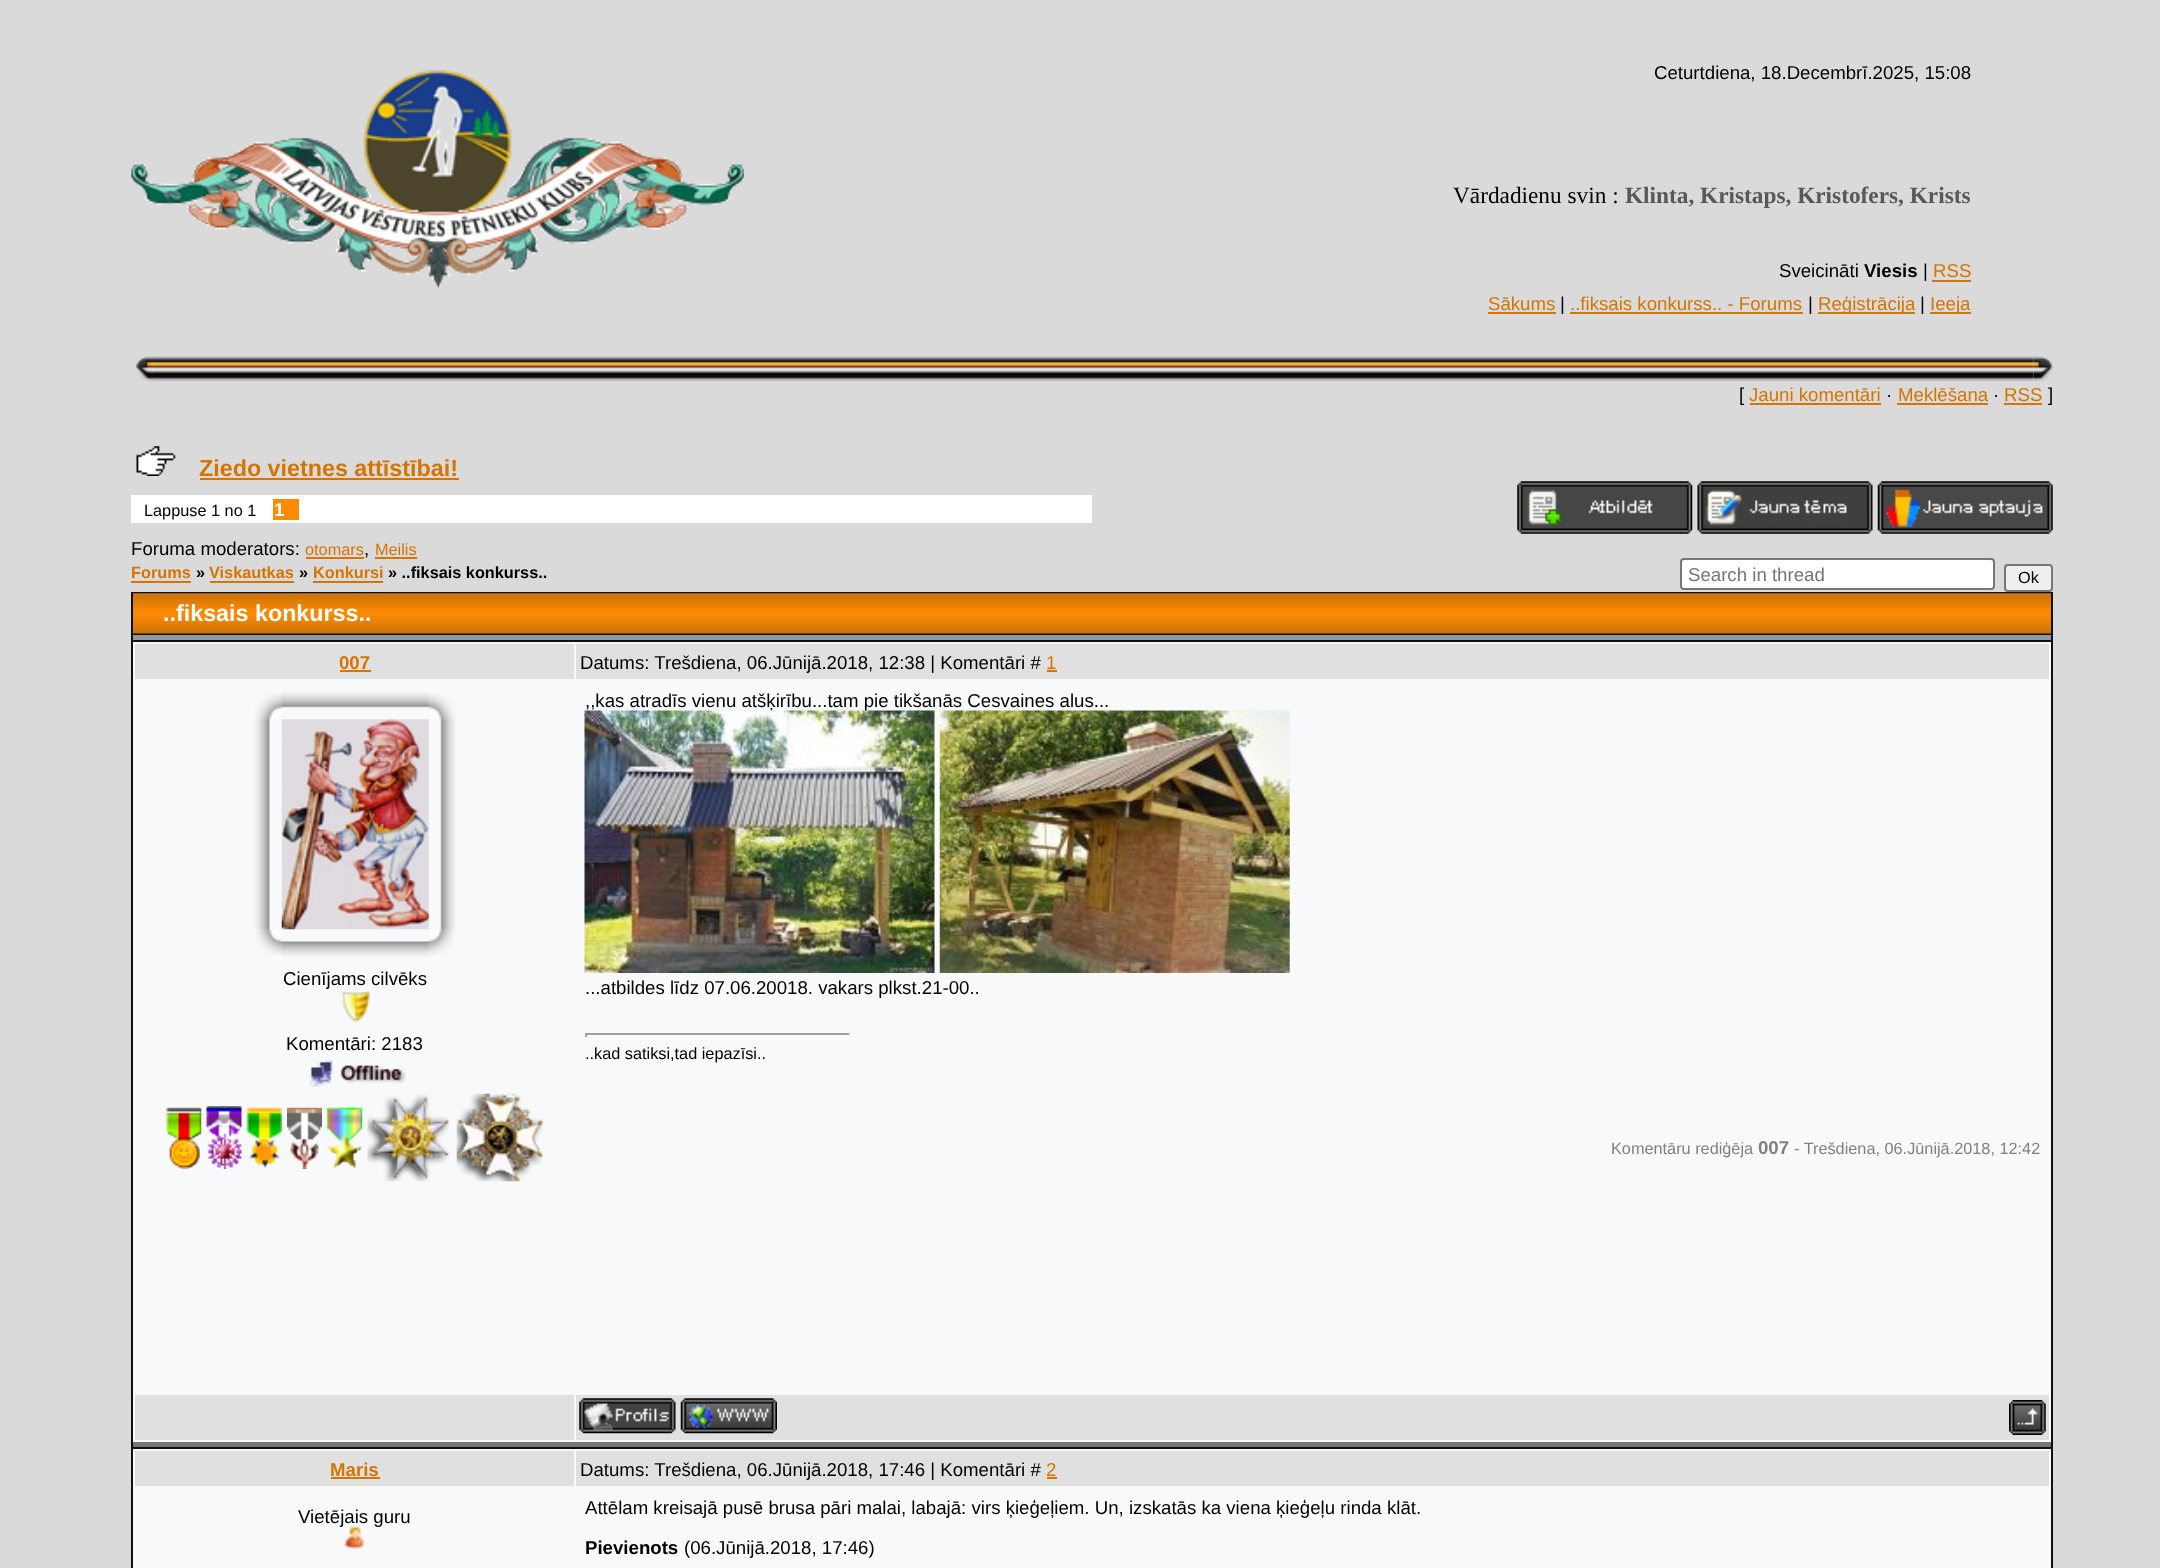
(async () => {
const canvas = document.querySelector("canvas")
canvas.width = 2160
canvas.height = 1568
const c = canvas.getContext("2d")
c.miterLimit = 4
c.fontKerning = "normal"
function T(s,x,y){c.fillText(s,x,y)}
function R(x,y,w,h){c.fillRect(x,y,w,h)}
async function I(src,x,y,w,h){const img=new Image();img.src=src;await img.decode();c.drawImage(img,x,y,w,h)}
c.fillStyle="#dadada"
R(0,0,2160,1568)
await I("1.png",131,69,613,219)
c.font="18.65px Liberation Sans"
c.fillStyle="#000"
T("Ceturtdiena, 18.Decembrī.2025, 15:08",1654,79)
c.font="23.3px Liberation Serif"
T("Vārdadienu svin :",1453,203)
c.font="bold 23.3px Liberation Serif"
c.fillStyle="#585858"
T("Klinta, Kristaps, Kristofers, Krists",1625,203)
c.font="18.65px Liberation Sans"
c.fillStyle="#000"
T("Sveicināti",1779,277)
c.font="bold 18.65px Liberation Sans"
T("Viesis",1864,277)
c.font="18.65px Liberation Sans"
T("|",1923,277)
c.fillStyle="#d57500"
T("RSS",1933,277)
R(1932,280,39,2)
T("Sākums",1488,310)
R(1488,312,68,2)
c.fillStyle="#000"
T("|",1560,310)
c.fillStyle="#d57500"
T("..fiksais konkurss.. - Forums",1570,310)
R(1570,312,233,2)
c.fillStyle="#000"
T("|",1808,310)
c.fillStyle="#d57500"
R(1818,312,97,2)
T("Reģistrācija",1818,310)
c.fillStyle="#000"
T("|",1920,310)
c.fillStyle="#d57500"
R(1930,312,41,2)
T("Ieeja",1930,310)
await I("3.png",152,356,1882,26)
await I("2.png",136,356,17,26)
await I("4.png",152,357,1,23)
await I("5.png",2033,356,20,26)
c.fillStyle="#000"
T("[",1739,401)
c.fillStyle="#d57500"
T("Jauni komentāri",1749,401)
R(1750,403,131,2)
c.fillStyle="#000"
T("·",1886,401)
c.fillStyle="#d57500"
T("Meklēšana",1898,401)
R(1897,403,91,2)
c.fillStyle="#000"
T("·",1993,401)
c.fillStyle="#d57500"
T("RSS",2004,401)
R(2004,403,38,2)
c.fillStyle="#000"
T("]",2048,401)
await I("6.png",136,446,40,30)
c.font="bold 23.3px Liberation Sans"
c.fillStyle="#d57500"
T("Ziedo vietnes attīstībai!",199,476)
R(200,478,259,2)
c.fillStyle="#fff"
R(131,495,961,28)
c.font="16.3px Liberation Sans"
c.fillStyle="#000"
T("Lappuse 1 no 1",144,516)
c.fillStyle="#fc8a03"
R(273,499,26,21)
c.font="bold 18.65px Liberation Sans"
c.fillStyle="#fff"
T("1",274,516)
await I("7.png",1517,481,176,53)
await I("8.png",1697,481,176,53)
await I("9.png",1877,481,176,53)
c.font="18.65px Liberation Sans"
c.fillStyle="#000"
T("Foruma moderators:",131,555)
c.font="16.3px Liberation Sans"
c.fillStyle="#d57500"
T("otomars",305,555)
c.font="18.65px Liberation Sans"
c.fillStyle="#000"
T(",",364,555)
c.fillStyle="#d57500"
R(306,557,58,2)
R(375,557,42,2)
c.font="16.3px Liberation Sans"
T("Meilis",375,555)
c.font="bold 16.3px Liberation Sans"
T("Forums",131,578)
R(131,581,60,2)
c.fillStyle="#000"
T("»",196,578)
c.fillStyle="#d57500"
T("Viskautkas",209,578)
R(210,581,84,2)
c.fillStyle="#000"
T("»",299,578)
c.fillStyle="#d57500"
T("Konkursi",313,578)
R(313,581,70,2)
c.fillStyle="#000"
T("» ..fiksais konkurss..",388,578)
c.fillStyle="#fff"
c.beginPath()
c.roundRect(1681,559,313,30,3)
c.fill()
c.strokeStyle="#767676"
c.lineWidth=2
c.stroke()
c.font="18.65px Liberation Sans"
c.fillStyle="#757575"
T("Search in thread",1688,581)
c.fillStyle="#efefef"
c.beginPath()
c.roundRect(2005,565,47,26,3)
c.fill()
c.stroke()
c.font="16.3px Liberation Sans"
c.fillStyle="#000"
T("Ok",2018,583)
c.fillStyle="#101010"
R(131,592,1922,976)
await I("10.png",133,593,1918,41)
c.font="bold 23.3px Liberation Sans"
c.fillStyle="#fff"
T("..fiksais konkurss..",163,621)
c.fillStyle="#9498a0"
R(133,635,1918,5)
c.fillStyle="#f8f9fa"
R(133,642,1918,800)
c.fillStyle="#787878"
R(133,1442,1918,5)
c.fillStyle="#e0e0e0"
R(135,644,439,35)
c.font="bold 18.65px Liberation Sans"
c.fillStyle="#d57500"
T("007",339,669)
R(340,670,31,2)
c.fillStyle="#e0e0e0"
R(576,644,1473,35)
c.font="18.65px Liberation Sans"
c.fillStyle="#000"
T("Datums: Trešdiena, 06.Jūnijā.2018, 12:38 | Komentāri #",580,669)
c.fillStyle="#d57500"
T("1",1046,669)
R(1047,670,10,2)
await I("11.png",255,693,27,27)
await I("12.png",281,692,148,16)
await I("13.png",428,693,27,27)
await I("14.png",254,719,17,211)
await I("17.png",256,929,26,26)
await I("16.png",440,719,16,211)
await I("18.png",281,941,148,16)
await I("19.png",428,929,27,27)
await I("15.png",281,719,148,211)
c.fillStyle="#000"
T("Cienījams cilvēks",283,985)
await I("20.png",341,990,30,33)
T("Komentāri: 2183",286,1050)
await I("21.png",309,1060,97,27)
await I("22.png",166,1107,36,62)
await I("23.png",206,1106,36,63)
await I("24.png",246,1107,36,61)
await I("25.png",287,1107,35,62)
await I("26.png",327,1107,36,61)
await I("27.png",367,1094,83,88)
await I("28.png",456,1093,87,89)
T(",,kas atradīs vienu atšķirību...tam pie tikšanās Cesvaines alus...",585,707)
await I("29.png",584,710,351,263)
await I("30.png",939,710,351,263)
T("...atbildes līdz 07.06.20018. vakars plkst.21-00..",585,994)
c.fillStyle="#9f9f9f"
R(585,1033,266,2)
c.fillStyle="#eee"
R(849,1033,2,4)
c.fillStyle="#9f9f9f"
R(585,1033,2,4)
c.font="16.3px Liberation Sans"
c.fillStyle="#000"
T("..kad satiksi,tad iepazīsi..",585,1059)
c.fillStyle="#808080"
T("Komentāru rediģēja",1611,1154)
c.font="bold 18.65px Liberation Sans"
T("007",1758,1154)
c.font="16.3px Liberation Sans"
T("- Trešdiena, 06.Jūnijā.2018, 12:42",1794,1154)
c.fillStyle="#e0e0e0"
R(135,1395,439,45)
R(576,1395,1473,45)
await I("31.png",579,1398,97,36)
await I("32.png",680,1398,97,36)
await I("33.png",2009,1400,37,35)
c.fillStyle="#f8f9fa"
R(133,1449,1918,119)
c.fillStyle="#e0e0e0"
R(135,1451,439,35)
c.font="bold 18.65px Liberation Sans"
c.fillStyle="#d57500"
T("Maris",330,1476)
R(331,1477,49,2)
c.fillStyle="#e0e0e0"
R(576,1451,1473,35)
c.font="18.65px Liberation Sans"
c.fillStyle="#000"
T("Datums: Trešdiena, 06.Jūnijā.2018, 17:46 | Komentāri #",580,1476)
c.fillStyle="#d57500"
T("2",1046,1476)
R(1047,1477,10,2)
c.fillStyle="#000"
T("Vietējais guru",298,1523)
await I("34.png",344,1526,21,23)
T("Attēlam kreisajā pusē brusa pāri malai, labajā: virs ķieģeļiem. Un, izskatās ka viena ķieģeļu rinda klāt.",585,1514)
c.font="bold 18.65px Liberation Sans"
T("Pievienots",585,1554)
c.font="18.65px Liberation Sans"
T("(06.Jūnijā.2018, 17:46)",684,1554)
})()
